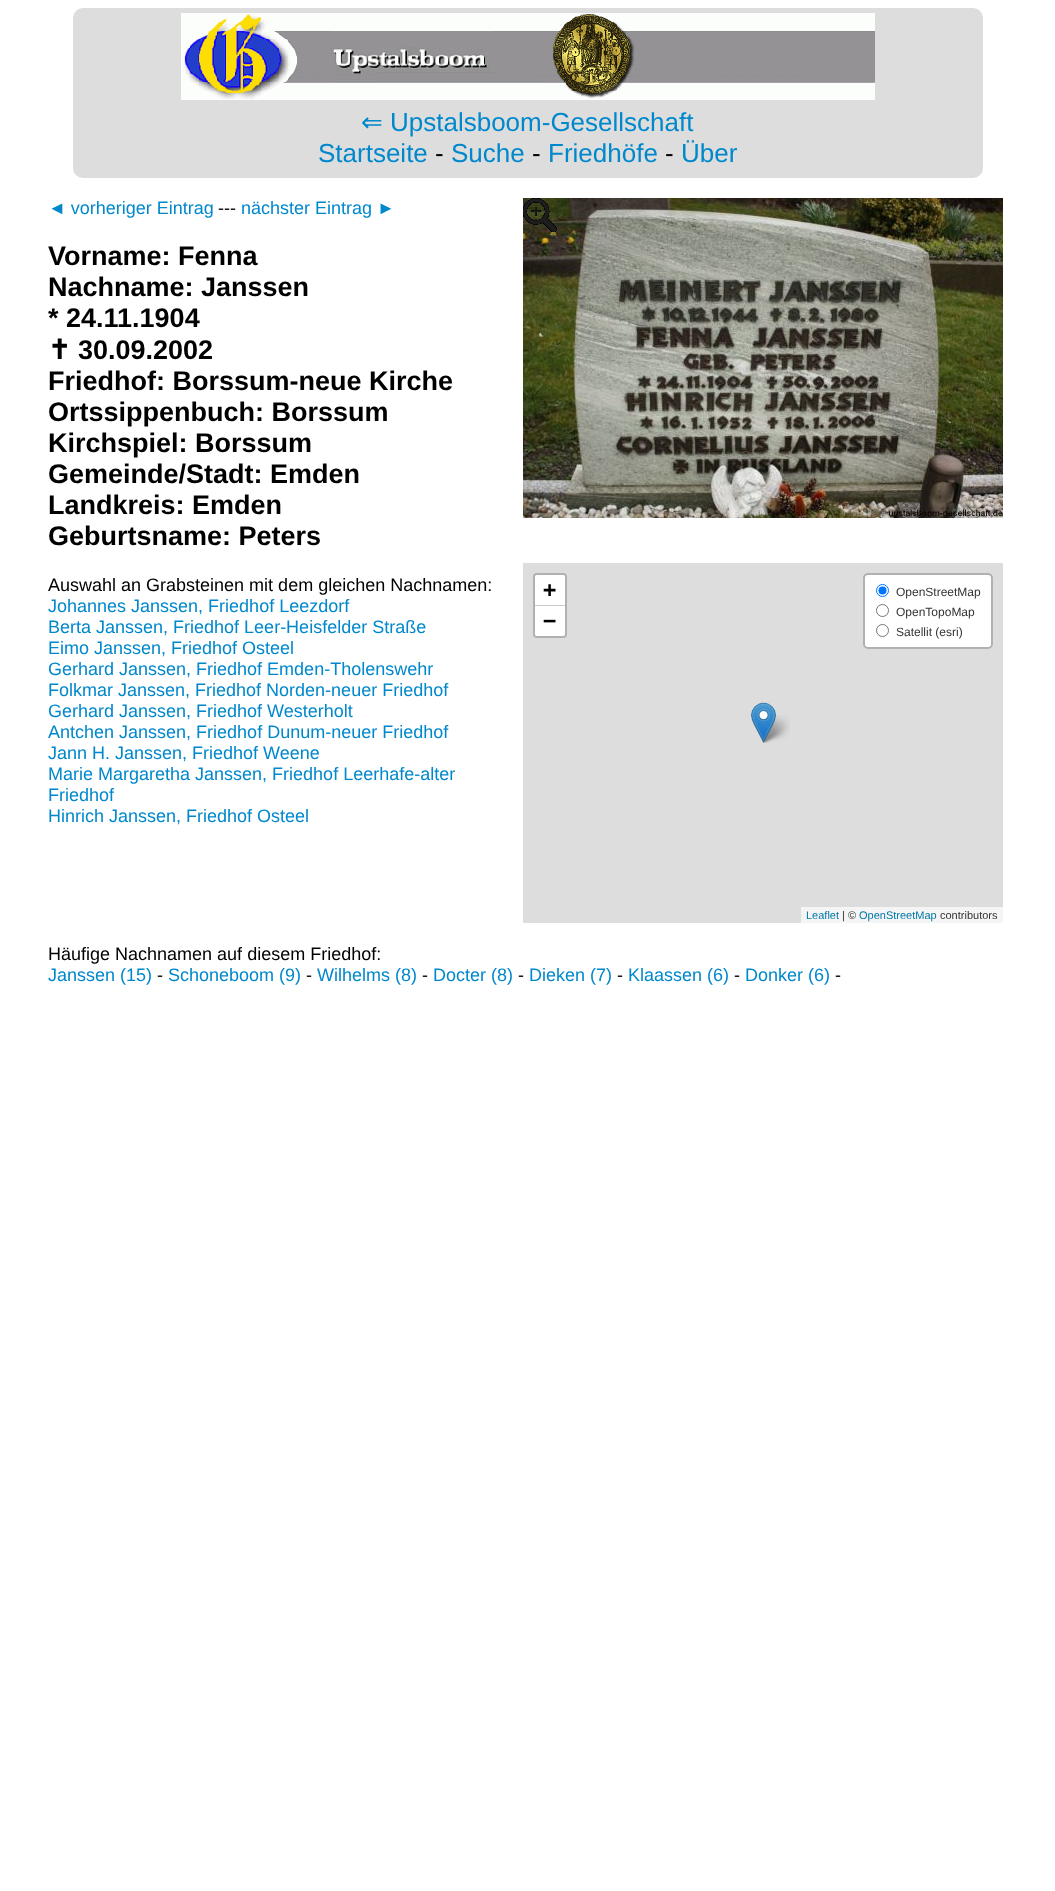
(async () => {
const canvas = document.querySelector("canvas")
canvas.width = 1055
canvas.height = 1891
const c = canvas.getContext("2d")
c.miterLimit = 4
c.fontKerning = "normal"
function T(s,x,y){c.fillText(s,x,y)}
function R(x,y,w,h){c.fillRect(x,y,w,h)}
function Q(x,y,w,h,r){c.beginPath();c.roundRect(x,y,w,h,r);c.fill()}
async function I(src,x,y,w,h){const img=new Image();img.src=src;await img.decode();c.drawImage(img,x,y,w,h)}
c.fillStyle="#fff"
R(0,0,1055,1891)
c.fillStyle="#ddd"
Q(73,8,910,170,10)
await I("1.png",181,13,694,87)
c.font="26px DejaVu Sans"
c.fillStyle="#08c"
T("⇐",361,131)
c.font="26px Liberation Sans"
T("Upstalsboom-Gesellschaft",390,131)
T("Startseite",318,162)
c.fillStyle="#000"
T("-",435,162)
c.fillStyle="#08c"
T("Suche",451,162)
c.fillStyle="#000"
T("-",532,162)
c.fillStyle="#08c"
T("Friedhöfe",548,162)
c.fillStyle="#000"
T("-",665,162)
c.fillStyle="#08c"
T("Über",681,162)
c.font="18px Liberation Sans"
T("◄ vorheriger Eintrag",48,214)
c.fillStyle="#000"
T("---",218,214)
c.fillStyle="#08c"
T("nächster Eintrag ►",241,214)
c.font="bold 27px Liberation Sans"
c.fillStyle="#000"
T("Vorname: Fenna",48,265)
T("Nachname: Janssen",48,296)
T("* 24.11.1904",48,327)
c.font="bold 27px DejaVu Sans"
T("✝",48,359)
c.font="bold 27px Liberation Sans"
T("30.09.2002",78,359)
T("Friedhof: Borssum-neue Kirche",48,390)
T("Ortssippenbuch: Borssum",48,421)
T("Kirchspiel: Borssum",48,452)
T("Gemeinde/Stadt: Emden",48,483)
T("Landkreis: Emden",48,514)
T("Geburtsname: Peters",48,545)
c.font="18px Liberation Sans"
T("Auswahl an Grabsteinen mit dem gleichen Nachnamen:",48,591)
c.fillStyle="#08c"
T("Johannes Janssen, Friedhof Leezdorf",48,612)
T("Berta Janssen, Friedhof Leer-Heisfelder Straße",48,633)
T("Eimo Janssen, Friedhof Osteel",48,654)
T("Gerhard Janssen, Friedhof Emden-Tholenswehr",48,675)
T("Folkmar Janssen, Friedhof Norden-neuer Friedhof",48,696)
T("Gerhard Janssen, Friedhof Westerholt",48,717)
T("Antchen Janssen, Friedhof Dunum-neuer Friedhof",48,738)
T("Jann H. Janssen, Friedhof Weene",48,759)
T("Marie Margaretha Janssen, Friedhof Leerhafe-alter",48,780)
T("Friedhof",48,801)
T("Hinrich Janssen, Friedhof Osteel",48,822)
await I("2.png",523,198,480,320)
c.fillStyle="#ddd"
R(523,563,480,360)
c.beginPath()
c.roundRect(534,574,32,63,3)
c.strokeStyle="#b1b1b1"
c.lineWidth=2
c.stroke()
c.fillStyle="#fff"
c.beginPath()
c.roundRect(535,575,30,31,[2,2,0,0])
c.fill()
c.fillStyle="#ccc"
R(535,605,30,1)
c.font="bold 22px DejaVu Sans Mono"
c.fillStyle="#000"
T("+",543,597)
c.fillStyle="#fff"
c.beginPath()
c.roundRect(535,606,30,30,[0,0,2,2])
c.fill()
c.fillStyle="#000"
T("−",543,628)
c.fillStyle="#fff"
c.beginPath()
c.roundRect(864,574,128,74,4)
c.fill()
c.stroke()
c.beginPath()
c.arc(882.5,590.5,6,0,7)
c.strokeStyle="#0075ff"
c.lineWidth=1
c.stroke()
c.fillStyle="#0075ff"
c.beginPath()
c.arc(882.5,590.5,4,0,7)
c.fill()
c.font="12px Liberation Sans"
c.fillStyle="#333"
T("OpenStreetMap",896,596)
c.beginPath()
c.arc(882.5,610.5,6,0,7)
c.strokeStyle="#767676"
c.stroke()
T("OpenTopoMap",896,616)
c.beginPath()
c.arc(882.5,630.5,6,0,7)
c.stroke()
T("Satellit (esri)",896,636)
c.fillStyle="#f5f5f5"
R(801,907,202,16)
c.font="11px Liberation Sans"
c.fillStyle="#0078a8"
T("Leaflet",806,919)
c.fillStyle="#333"
T("| ©",842,919)
c.fillStyle="#0078a8"
T("OpenStreetMap",859,919)
c.fillStyle="#333"
T("contributors",940,919)
await I("4.png",761,715,29,28)
await I("3.png",751,702,25,41)
c.font="18px Liberation Sans"
c.fillStyle="#000"
T("Häufige Nachnamen auf diesem Friedhof:",48,960)
c.fillStyle="#08c"
T("Janssen (15)",48,981)
c.fillStyle="#000"
T("-",157,981)
c.fillStyle="#08c"
T("Schoneboom (9)",168,981)
c.fillStyle="#000"
T("-",306,981)
c.fillStyle="#08c"
T("Wilhelms (8)",317,981)
c.fillStyle="#000"
T("-",422,981)
c.fillStyle="#08c"
T("Docter (8)",433,981)
c.fillStyle="#000"
T("-",518,981)
c.fillStyle="#08c"
T("Dieken (7)",529,981)
c.fillStyle="#000"
T("-",617,981)
c.fillStyle="#08c"
T("Klaassen (6)",628,981)
c.fillStyle="#000"
T("-",734,981)
c.fillStyle="#08c"
T("Donker (6)",745,981)
c.fillStyle="#000"
T("-",835,981)
})()
